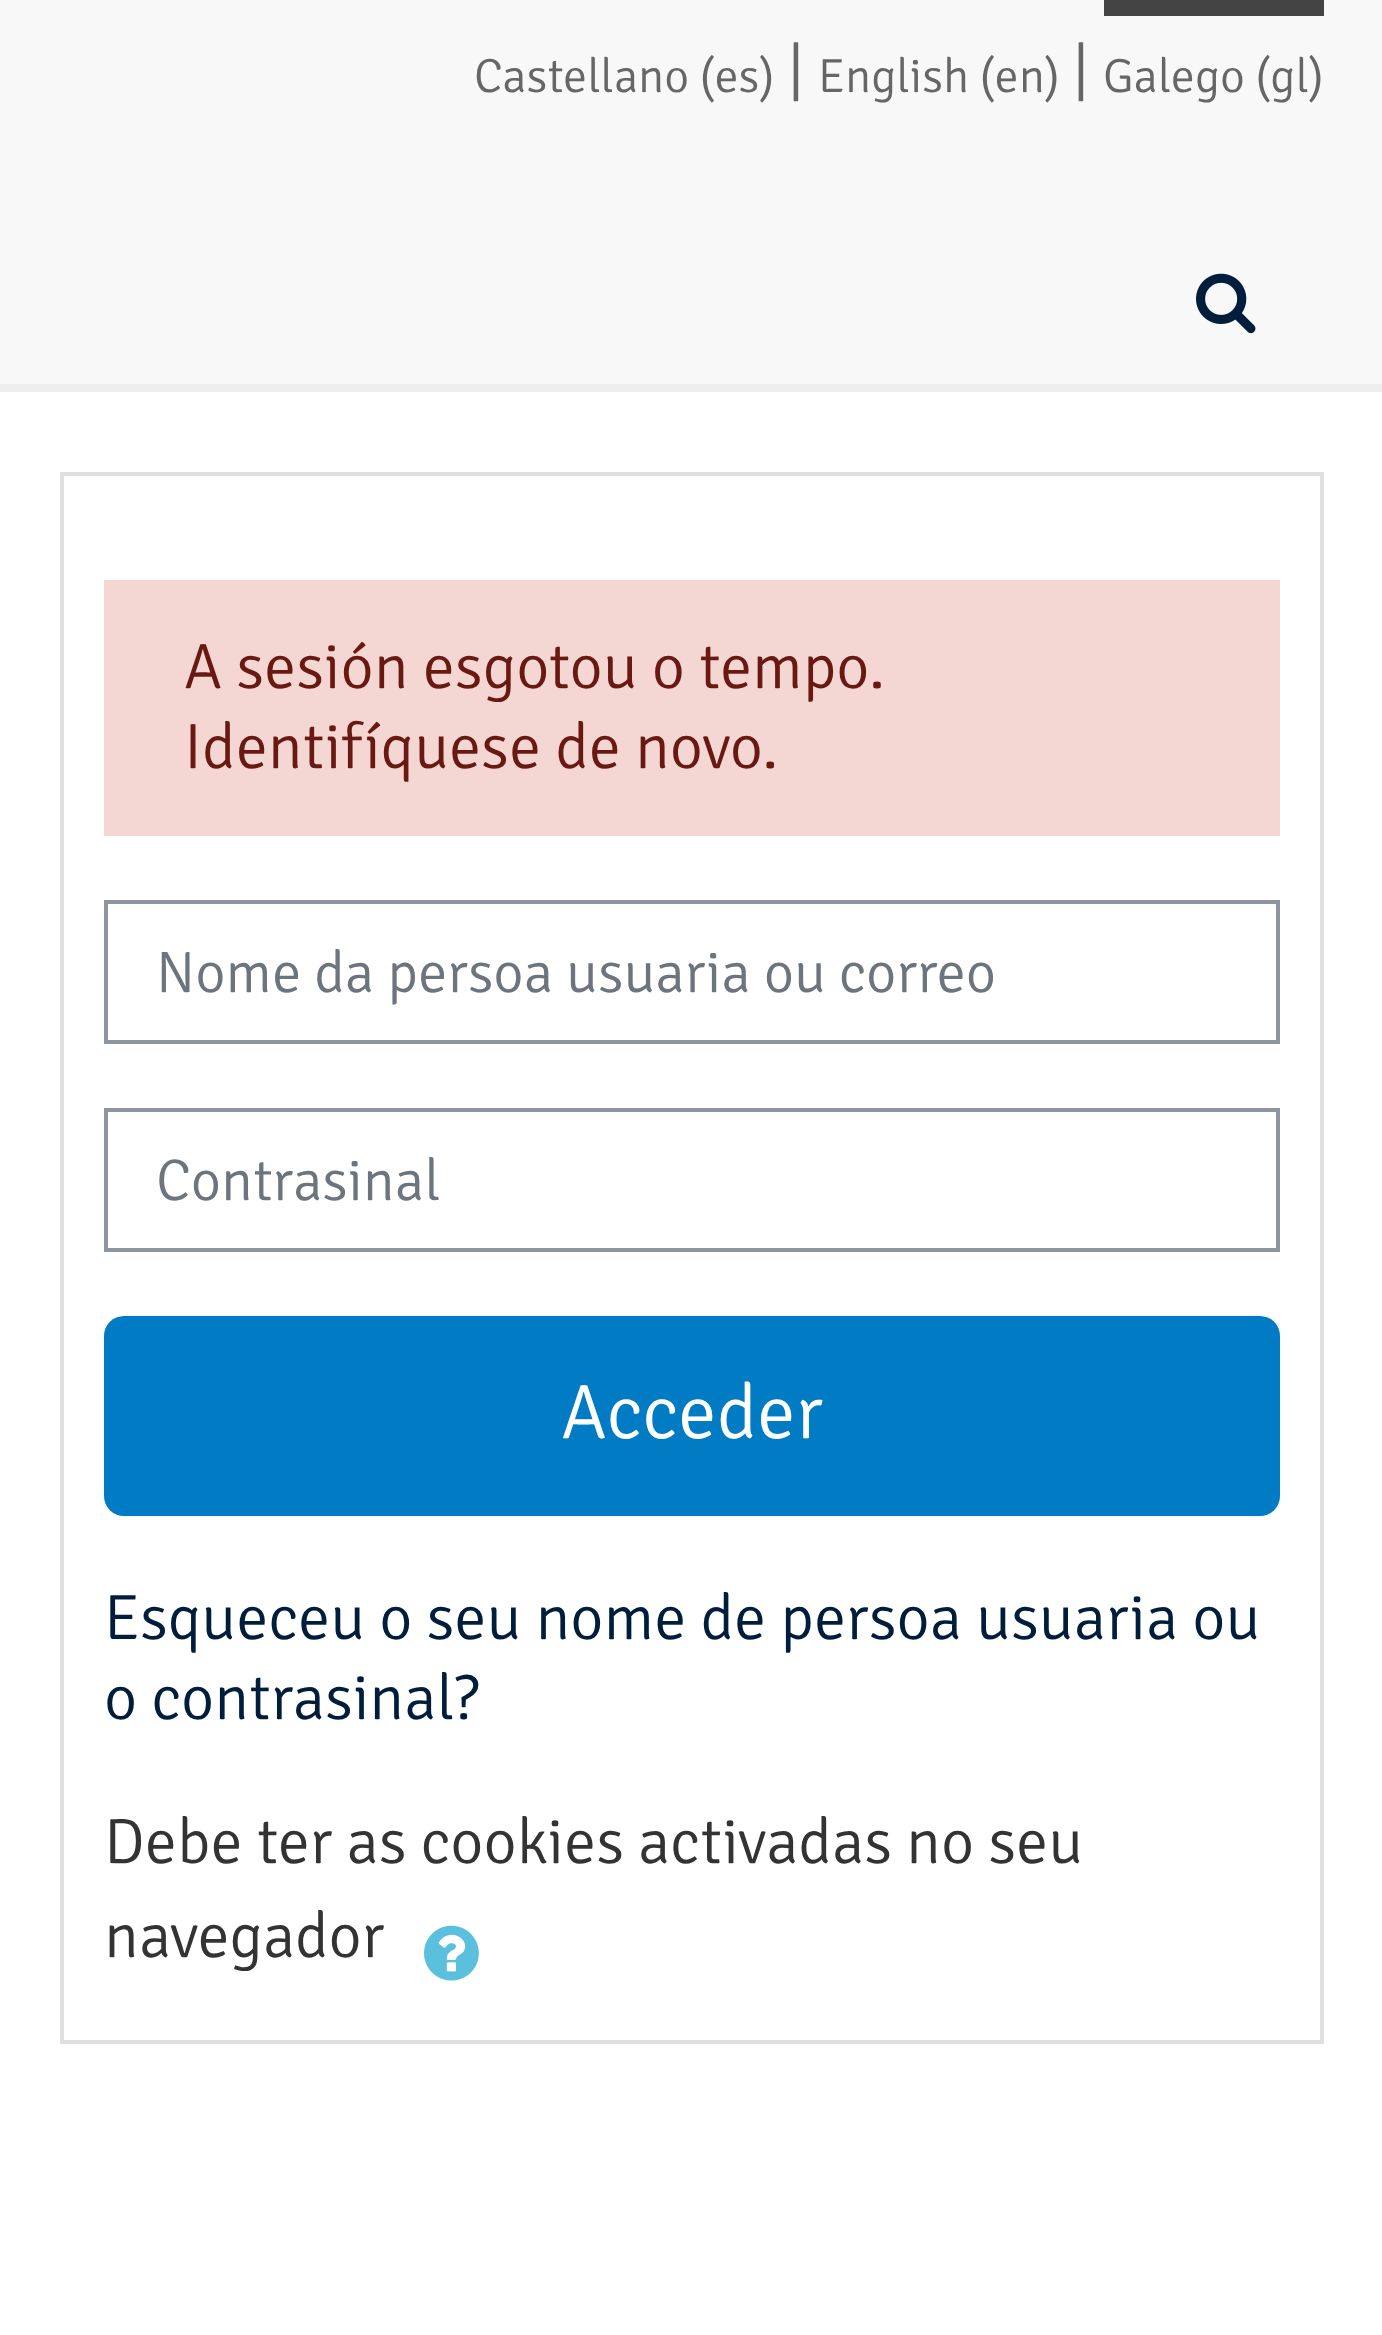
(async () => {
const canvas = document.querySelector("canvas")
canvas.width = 1382
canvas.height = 2335
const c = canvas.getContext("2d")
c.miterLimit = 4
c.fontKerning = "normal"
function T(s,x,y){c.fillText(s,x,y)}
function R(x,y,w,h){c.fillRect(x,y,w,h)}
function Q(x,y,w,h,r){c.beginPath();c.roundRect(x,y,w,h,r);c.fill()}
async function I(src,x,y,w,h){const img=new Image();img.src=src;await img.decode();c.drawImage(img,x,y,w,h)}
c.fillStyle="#fff"
R(0,0,1382,2335)
c.fillStyle="#f8f8f8"
R(0,0,1382,384)
c.font="300 48px Signika"
c.fillStyle="#666"
T("Castellano (es)",474,92)
c.font="300 64px Signika"
T("|",788,92)
c.font="300 48px Signika"
T("English (en)",818,92)
c.font="300 64px Signika"
T("|",1073,92)
c.fillStyle="#444"
R(1104,0,220,16)
c.font="300 48px Signika"
c.fillStyle="#666"
T("Galego (gl)",1103,92)
c.fillStyle="#eee"
R(0,384,1382,8)
await I("1.png",1196,273,60,61)
c.strokeStyle="#dfdfdf"
c.lineWidth=4
c.strokeRect(62,474,1260,1568)
c.fillStyle="#f4d6d2"
R(104,580,1176,256)
c.font="300 64px Signika"
c.fillStyle="#691911"
T("A sesión esgotou o tempo.",184,688)
T("Identifíquese de novo.",184,768)
c.strokeStyle="#8f959e"
c.strokeRect(106,902,1172,140)
c.font="300 58.5px Signika"
c.fillStyle="#6c757d"
T("Nome da persoa usuaria ou correo",156,992)
c.strokeRect(106,1110,1172,140)
T("Contrasinal",156,1200)
c.fillStyle="#007bc4"
Q(104,1316,1176,200,20)
c.font="300 77px Signika"
c.fillStyle="#fff"
T("Acceder",561,1438)
c.font="300 64px Signika"
c.fillStyle="#001e3c"
T("Esqueceu o seu nome de persoa usuaria ou",104,1639)
T("o contrasinal?",104,1719)
c.fillStyle="#333"
T("Debe ter as cookies activadas no seu",104,1863)
T("navegador",104,1957)
await I("2.png",424,1925,55,56)
})()
